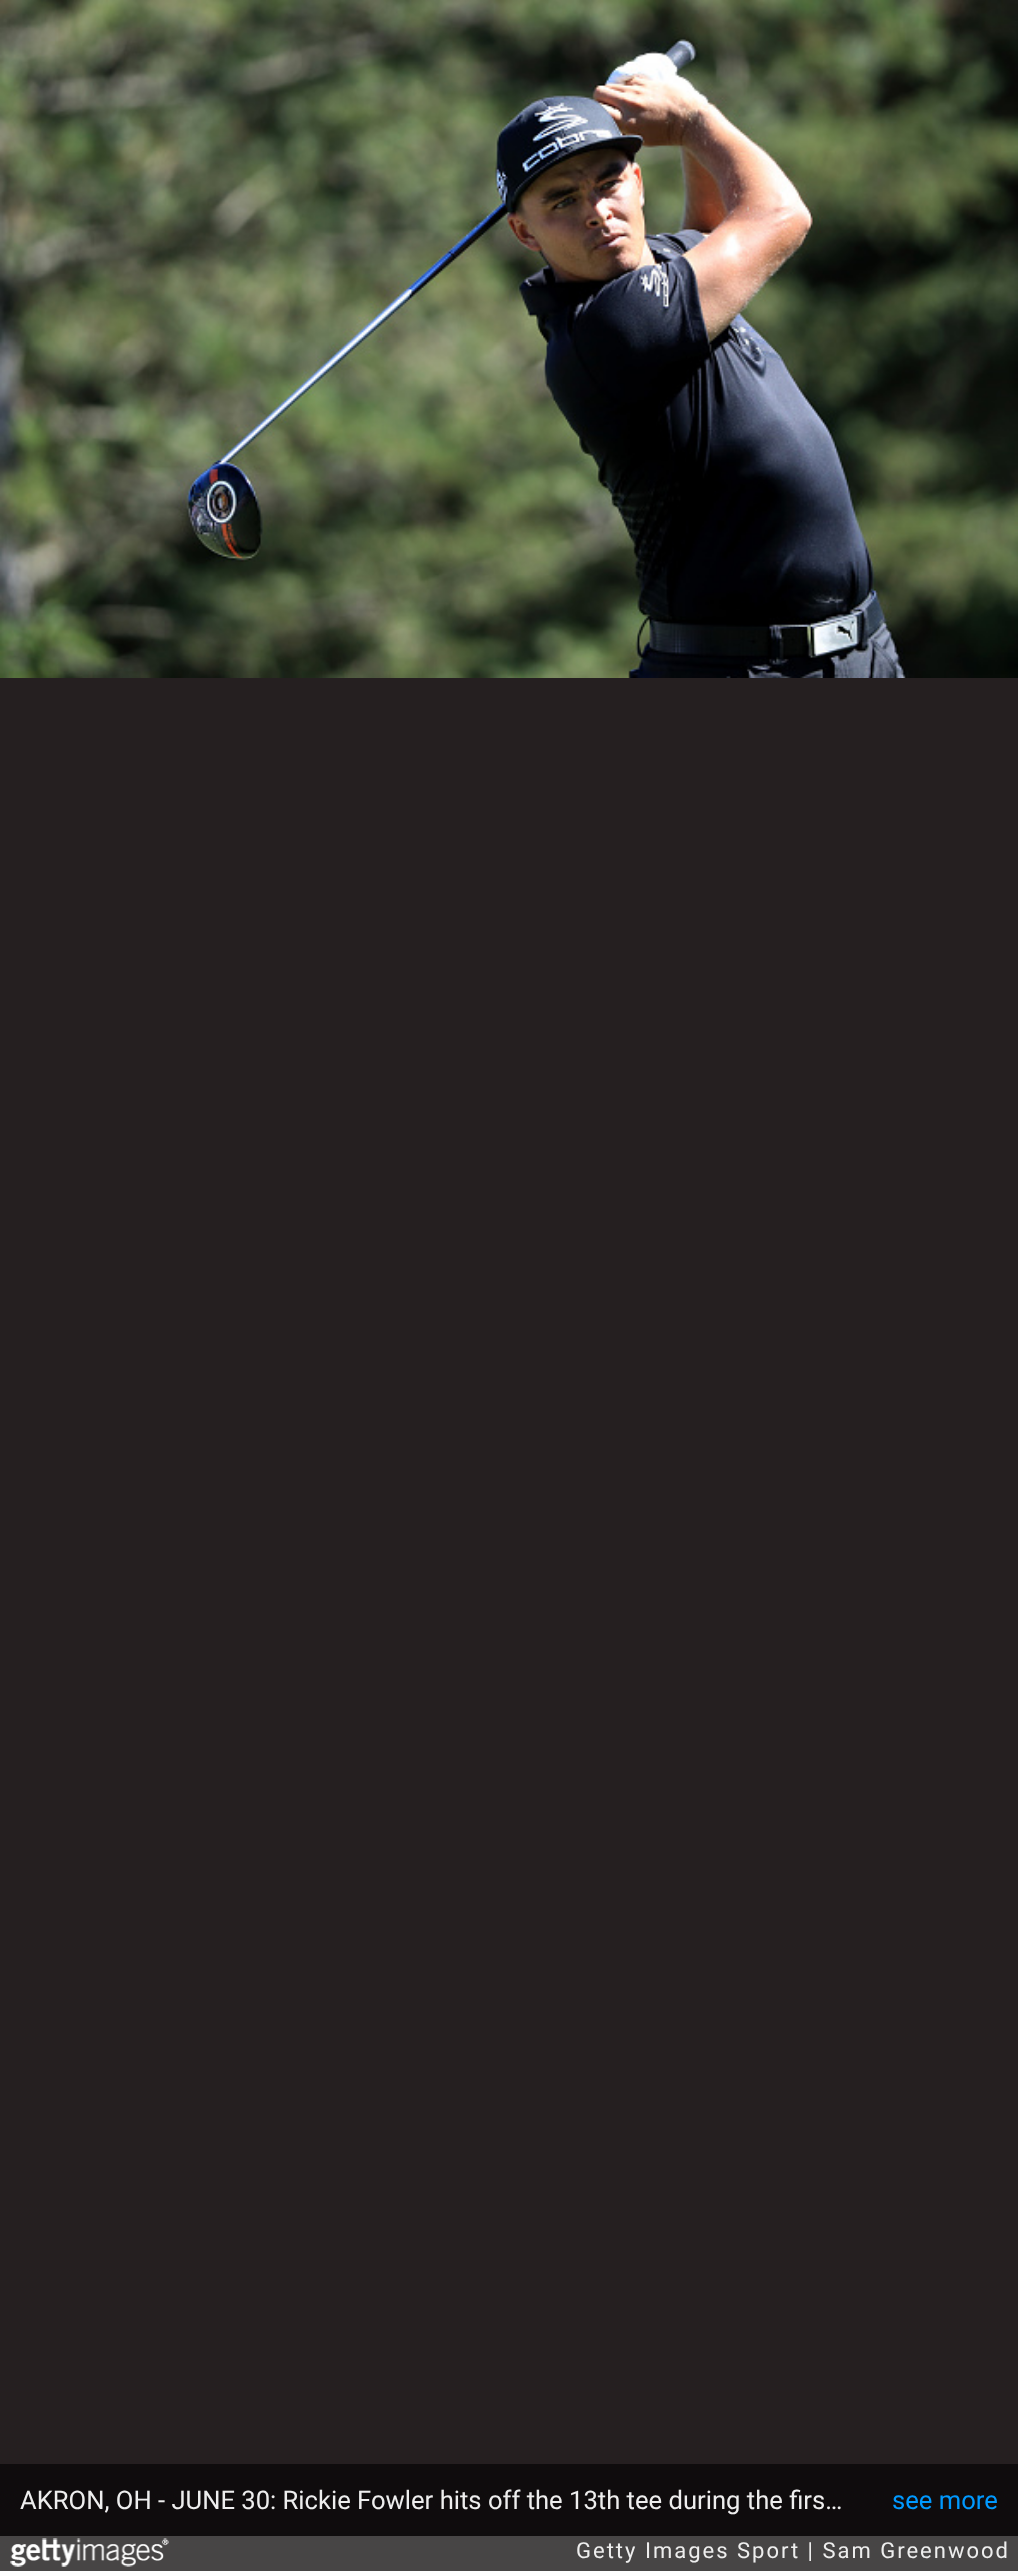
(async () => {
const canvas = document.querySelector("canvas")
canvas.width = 1018
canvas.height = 2571
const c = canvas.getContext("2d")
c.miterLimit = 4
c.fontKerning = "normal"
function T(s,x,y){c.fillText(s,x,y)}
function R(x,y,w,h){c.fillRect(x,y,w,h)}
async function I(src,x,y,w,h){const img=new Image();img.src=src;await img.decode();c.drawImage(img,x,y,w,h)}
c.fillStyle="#251f20"
R(0,0,1018,2571)
await I("1.png",0,0,1018,678)
c.fillStyle="#0f0c0d"
R(0,2464,1018,72)
c.font="25.6px Roboto"
c.fillStyle="#eee"
T("AKRON, OH - JUNE 30: Rickie Fowler hits off the 13th tee during the firs…",20,2509)
c.fillStyle="#09f"
T("see more",892,2509)
c.fillStyle="#474545"
R(0,2536,1018,35)
await I("2.png",10,2538,159,29)
c.letterSpacing="2px"
c.font="22px Roboto"
c.fillStyle="#eee"
T("Getty Images Sport | Sam Greenwood",576,2558)
})()
